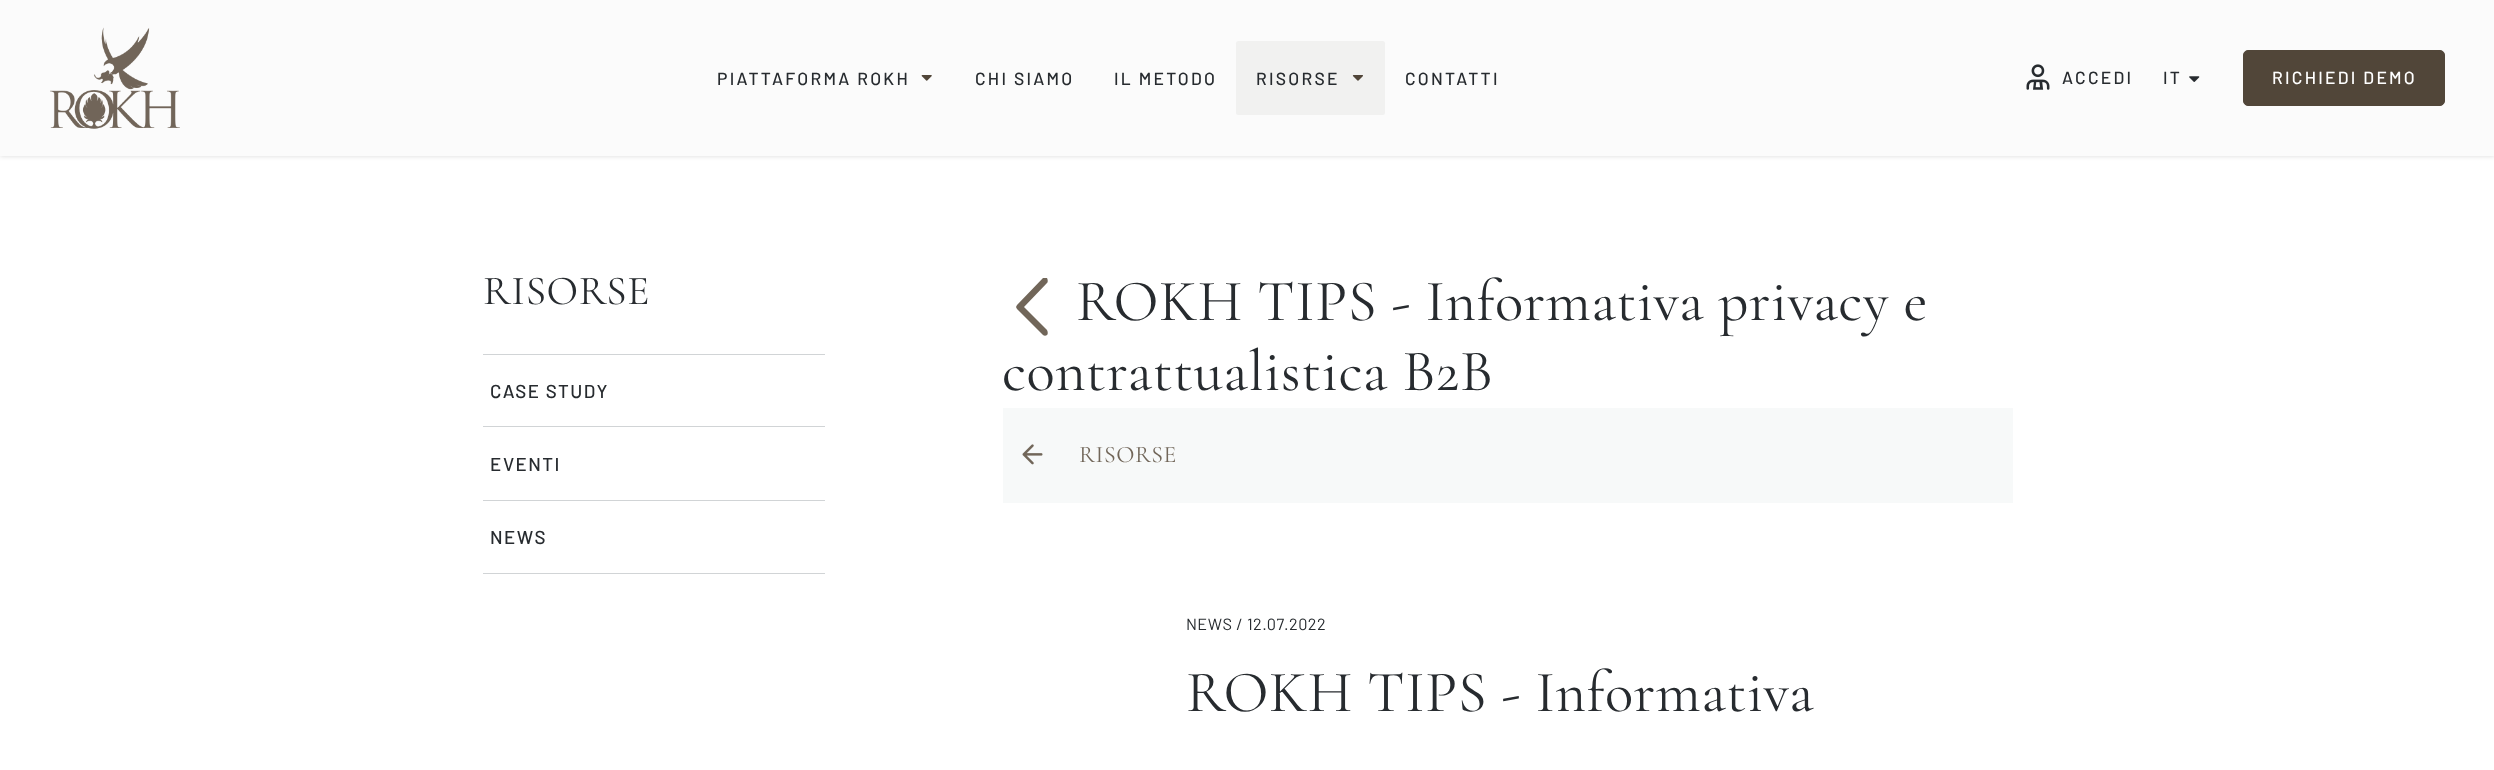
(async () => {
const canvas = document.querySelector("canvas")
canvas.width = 2494
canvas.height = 770
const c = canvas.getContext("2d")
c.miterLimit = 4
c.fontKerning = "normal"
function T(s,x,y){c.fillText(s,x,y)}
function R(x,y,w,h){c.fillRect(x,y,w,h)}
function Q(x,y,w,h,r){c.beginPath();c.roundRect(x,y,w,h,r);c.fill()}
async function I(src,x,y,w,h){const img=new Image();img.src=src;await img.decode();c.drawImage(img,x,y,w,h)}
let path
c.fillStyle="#fff"
R(0,0,2494,770)
c.fillStyle="#00000026"
c.filter="blur(2.5px)"
c.beginPath()
c.rect(0,0,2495,156)
c.fill()
c.filter="none"
c.fillStyle="#fbfbfb"
R(0,0,2494,156)
await I("1.png",50,27,130,102)
c.letterSpacing="2.25px"
c.font="500 17.5px Barlow"
c.fillStyle="#272b2f"
T("PIATTAFORMA ROKH",717,85)
await I("2.png",921,75,11,6)
T("CHI SIAMO",975,85)
T("IL METODO",1114,85)
c.fillStyle="#f1f1f0"
Q(1236,41,149,74,2.5)
c.fillStyle="#272b2f"
T("RISORSE",1256,85)
await I("3.png",1352,75,11,6)
T("CONTATTI",1405,85)
await I("4.png",2026,64,24,26)
T("ACCEDI",2062,84)
T("IT",2163,84)
await I("5.png",2189,76,11,6)
c.fillStyle="#514639"
c.beginPath()
c.roundRect(2243.5,50.5,201,55,4.5)
c.fill()
c.strokeStyle="#514639"
c.stroke()
c.fillStyle="#fff"
T("RICHIEDI DEMO",2272,84)
c.letterSpacing="0.6px"
c.font="41.25px Cormorant Garamond"
c.fillStyle="#272b2f"
T("RISORSE",483,304)
c.fillStyle="#d1d4d6"
R(483,573,342,1)
R(483,354,342,1)
c.letterSpacing="1.5px"
c.font="500 18.75px Barlow"
c.fillStyle="#272b2f"
T("CASE STUDY",490,398)
c.fillStyle="#d1d4d6"
R(483,426,342,1)
c.fillStyle="#272b2f"
T("EVENTI",490,471)
c.fillStyle="#d1d4d6"
R(483,500,342,1)
c.fillStyle="#272b2f"
T("NEWS",490,544)
c.save()
c.beginPath()
c.rect(1003,278,58,58)
c.clip()
c.fillStyle="#716659"
path = new Path2D("M1016 307l1 2l26 26c1 1 3 1 4 0c1-1 1-3 0-5l-23-23l23-24c1-1 1-3 0-5c-1-1-3-1-4 0l-26 27z")
c.fill(path)
c.restore()
c.letterSpacing="0.6px"
c.font="58.75px Cormorant Garamond"
T("ROKH TIPS - Informativa privacy e",1076,320)
T("contrattualistica B2B",1002,390)
c.fillStyle="#f7f9f9"
R(1003,408,1010,95)
await I("6.png",1022,444,21,21)
c.font="23.75px Cormorant Garamond"
c.fillStyle="#716659"
T("RISORSE",1079,462)
c.letterSpacing="0.5px"
c.font="16.25px Barlow"
c.fillStyle="#272b2f"
T("NEWS / 12.07.2022",1186,630)
c.letterSpacing="0.6px"
c.font="58.75px Cormorant Garamond"
T("ROKH TIPS - Informativa",1186,711)
})()
